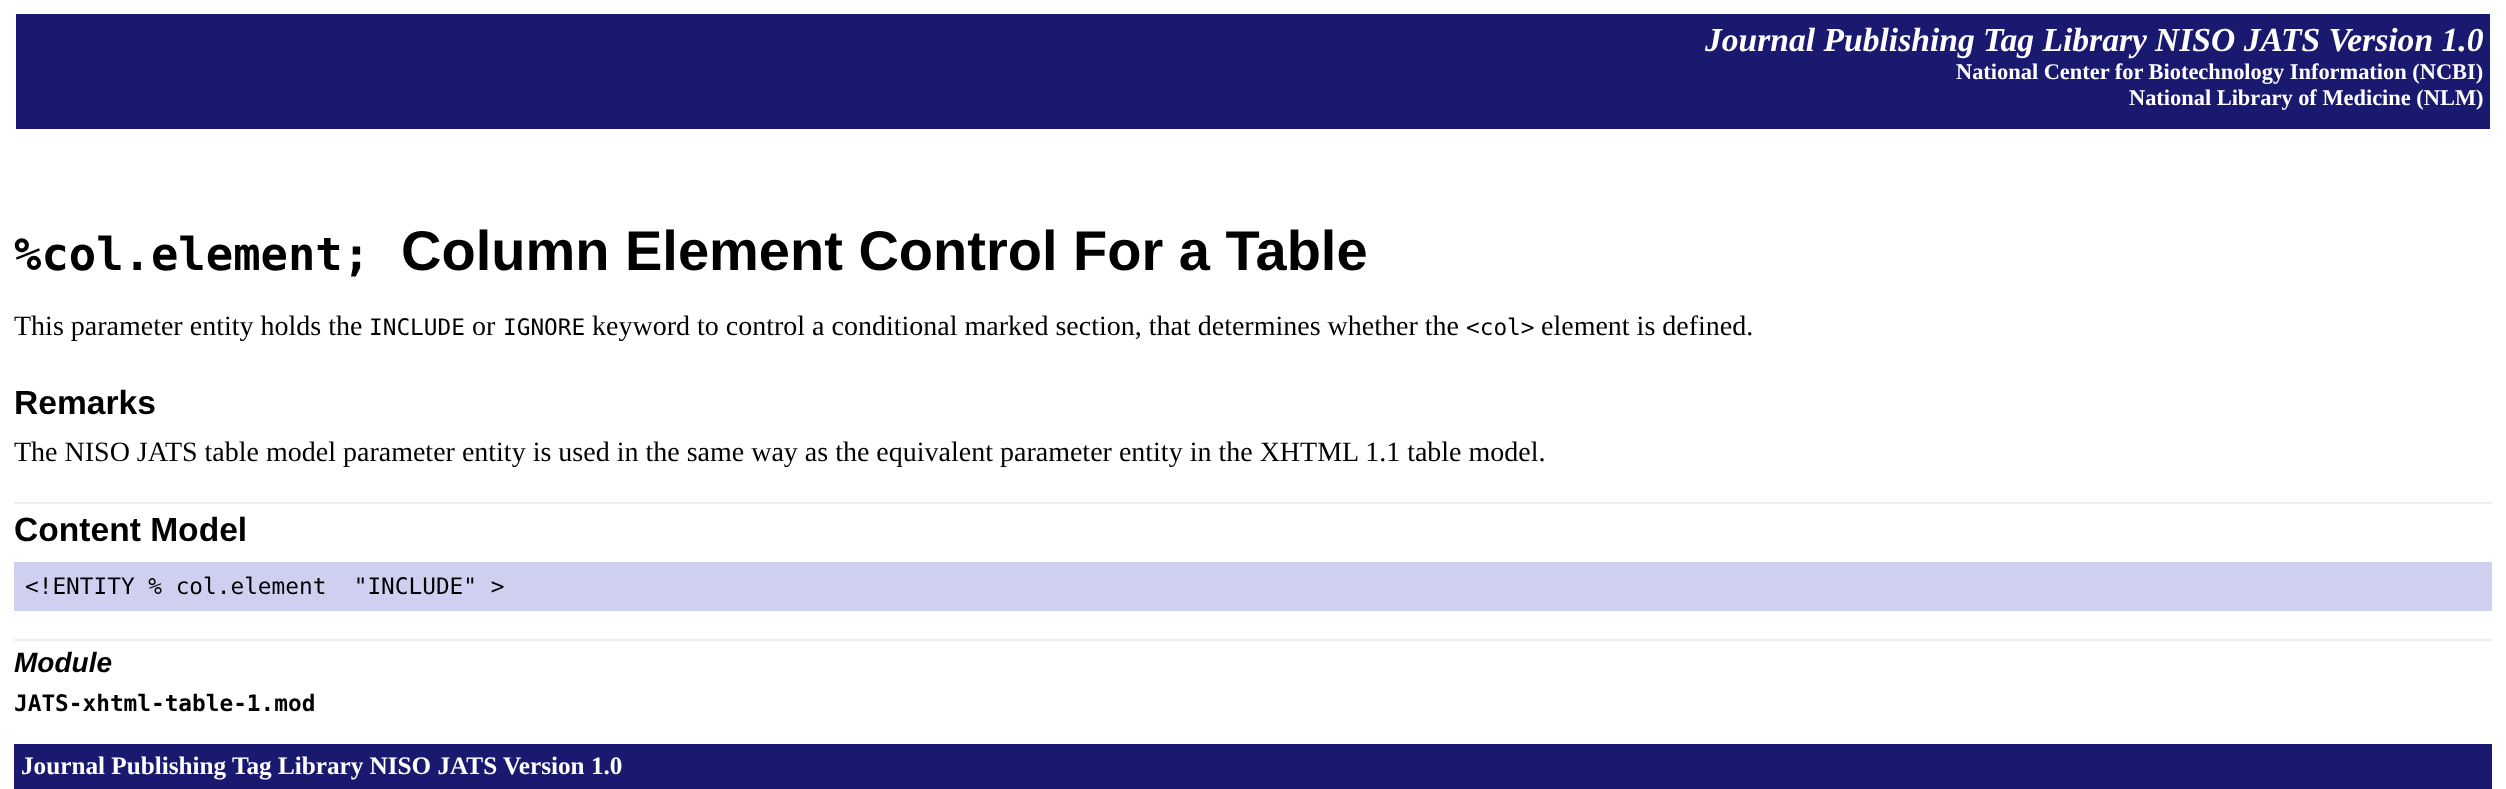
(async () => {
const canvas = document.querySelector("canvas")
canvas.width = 2506
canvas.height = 789
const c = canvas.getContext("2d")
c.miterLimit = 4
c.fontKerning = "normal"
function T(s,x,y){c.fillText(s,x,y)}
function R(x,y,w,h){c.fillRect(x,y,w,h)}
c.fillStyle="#fff"
R(0,0,2506,789)
c.fillStyle="#191970"
R(16,14,2474,115)
c.font="italic bold 33.6px Liberation Serif"
c.fillStyle="#fff"
T("Journal Publishing Tag Library",1705,51)
T("NISO JATS Version 1.0",2155,51)
c.font="bold 22.4px Liberation Serif"
T("National Center for Biotechnology Information (NCBI)",1956,79)
T("National Library of Medicine (NLM)",2129,105)
c.font="bold 45.5px DejaVu Sans Mono"
c.fillStyle="#000"
T("%col.element;",14,270)
c.font="bold 56px Liberation Sans"
T("Column Element Control For a Table",401,270)
c.font="28px Liberation Serif"
T("This parameter entity holds the",14,335)
c.font="22.75px DejaVu Sans Mono"
T("INCLUDE",369,335)
c.font="28px Liberation Serif"
T("or",472,335)
c.font="22.75px DejaVu Sans Mono"
T("IGNORE",503,335)
c.font="28px Liberation Serif"
T("keyword to control a conditional marked section, that determines whether the",592,335)
c.font="22.75px DejaVu Sans Mono"
T("<col>",1466,335)
c.font="28px Liberation Serif"
T("element is defined.",1541,335)
c.font="bold 33.6px Liberation Sans"
T("Remarks",14,414)
c.font="28px Liberation Serif"
T("The NISO JATS table model parameter entity is used in the same way as the equivalent parameter entity in the XHTML 1.1 table model.",14,461)
c.fillStyle="#eee"
R(14,502,2478,2)
c.font="bold 33.6px Liberation Sans"
c.fillStyle="#000"
T("Content Model",14,541)
c.fillStyle="#cfcfef"
R(14,562,2478,49)
c.font="22.75px DejaVu Sans Mono"
c.fillStyle="#000"
T("<!ENTITY % col.element  \"INCLUDE\" >",25,594)
c.fillStyle="#eee"
R(14,639,2478,2)
c.font="italic bold 28px Liberation Sans"
c.fillStyle="#000"
T("Module",14,672)
c.font="bold 22.75px DejaVu Sans Mono"
T("JATS-xhtml-table-1.mod",14,711)
c.fillStyle="#191970"
R(14,744,2478,45)
c.font="bold 25.2px Liberation Serif"
c.fillStyle="#fff"
T("Journal Publishing Tag Library NISO JATS Version 1.0",21,774)
})()
